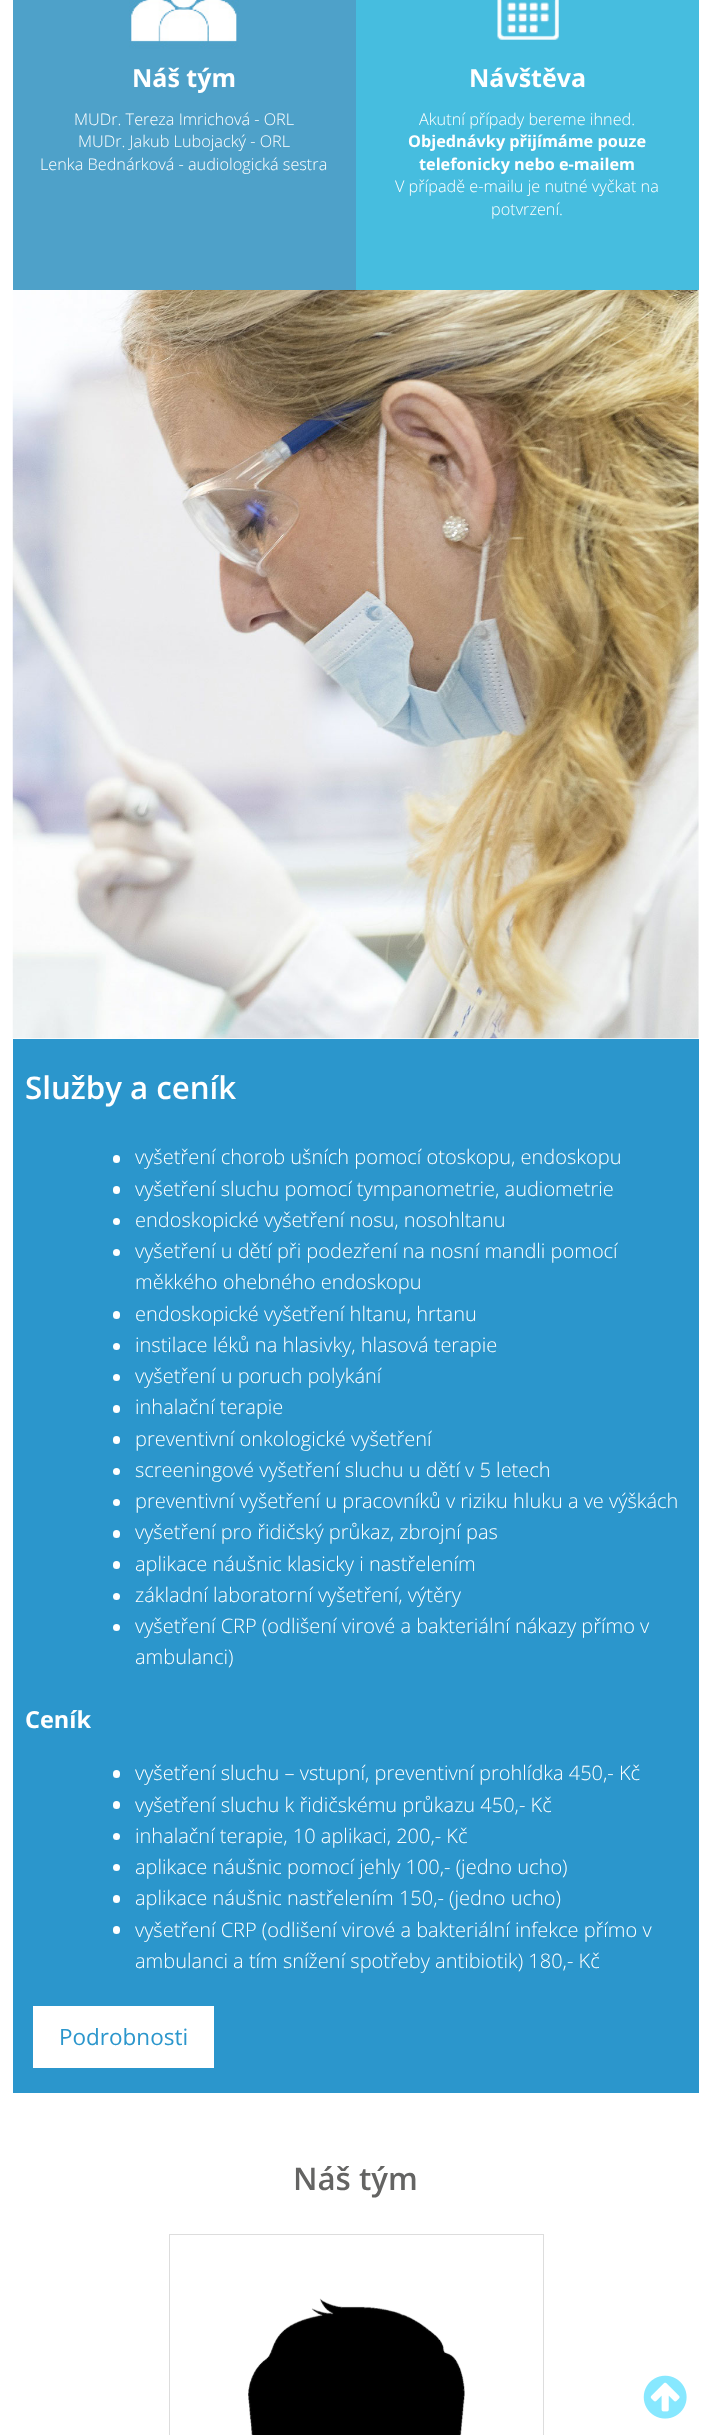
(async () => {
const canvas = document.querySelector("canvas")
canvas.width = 711
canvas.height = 2435
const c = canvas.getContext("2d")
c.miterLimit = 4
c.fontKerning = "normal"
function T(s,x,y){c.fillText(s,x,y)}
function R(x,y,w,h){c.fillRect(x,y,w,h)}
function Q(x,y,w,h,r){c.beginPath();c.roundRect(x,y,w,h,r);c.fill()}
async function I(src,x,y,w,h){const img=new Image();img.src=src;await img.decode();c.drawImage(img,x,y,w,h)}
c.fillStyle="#fff"
R(0,0,711,2435)
c.fillStyle="#4ea1c9"
R(13,0,343,290)
await I("1.png",129,0,110,49)
c.font="bold 25px Open Sans"
c.fillStyle="#fff"
T("Náš tým",132,87)
c.font="300 16.25px Open Sans"
T("MUDr. Tereza Imrichová - ORL",74,125)
T("MUDr. Jakub Lubojacký - ORL",78,147)
T("Lenka Bednárková - audiologická sestra",40,170)
c.fillStyle="#46bddf"
R(356,0,343,290)
await I("2.png",497,0,62,40)
c.font="bold 25px Open Sans"
c.fillStyle="#fff"
T("Návštěva",469,87)
c.font="300 16.25px Open Sans"
T("Akutní případy bereme ihned.",419,125)
c.font="bold 16.25px Open Sans"
T("Objednávky přijímáme pouze",408,147)
T("telefonicky nebo e-mailem",419,170)
c.font="300 16.25px Open Sans"
T("V případě e-mailu je nutné vyčkat na",395,192)
T("potvrzení.",491,215)
await I("3.png",12,290,687,749)
c.fillStyle="#2b96cc"
R(13,1039,686,1054)
c.font="600 31.25px Open Sans"
c.fillStyle="#fff"
T("Služby a ceník",25,1099)
Q(113,1155,7,8,3.5)
c.font="300 20px Open Sans"
T("vyšetření chorob ušních pomocí otoskopu, endoskopu",135,1164)
Q(113,1186,7,8,3.5)
T("vyšetření sluchu pomocí tympanometrie, audiometrie",135,1196)
c.beginPath()
c.arc(116.5,1221.5,3.5,0,7)
c.fill()
T("endoskopické vyšetření nosu, nosohltanu",135,1227)
c.beginPath()
c.arc(116.5,1252.5,3.5,0,7)
c.fill()
T("vyšetření u dětí při podezření na nosní mandli pomocí",135,1258)
T("měkkého ohebného endoskopu",135,1289)
Q(113,1311,7,8,3.5)
T("endoskopické vyšetření hltanu, hrtanu",135,1321)
c.beginPath()
c.arc(116.5,1346.5,3.5,0,7)
c.fill()
T("instilace léků na hlasivky, hlasová terapie",135,1352)
c.beginPath()
c.arc(116.5,1377.5,3.5,0,7)
c.fill()
T("vyšetření u poruch polykání",135,1383)
Q(113,1405,7,8,3.5)
T("inhalační terapie",135,1414)
Q(113,1436,7,8,3.5)
T("preventivní onkologické vyšetření",135,1446)
c.beginPath()
c.arc(116.5,1471.5,3.5,0,7)
c.fill()
T("screeningové vyšetření sluchu u dětí v 5 letech",135,1477)
c.beginPath()
c.arc(116.5,1502.5,3.5,0,7)
c.fill()
T("preventivní vyšetření u pracovníků v riziku hluku a ve výškách",135,1508)
Q(113,1530,7,8,3.5)
T("vyšetření pro řidičský průkaz, zbrojní pas",135,1539)
Q(113,1561,7,8,3.5)
T("aplikace náušnic klasicky i nastřelením",135,1571)
c.beginPath()
c.arc(116.5,1596.5,3.5,0,7)
c.fill()
T("základní laboratorní vyšetření, výtěry",135,1602)
c.beginPath()
c.arc(116.5,1627.5,3.5,0,7)
c.fill()
T("vyšetření CRP (odlišení virové a bakteriální nákazy přímo v",135,1633)
T("ambulanci)",135,1664)
c.font="bold 23.5px Open Sans"
T("Ceník",25,1728)
Q(113,1770,7,8,3.5)
c.font="300 20px Open Sans"
T("vyšetření sluchu – vstupní, preventivní prohlídka 450,- Kč",135,1780)
Q(113,1801,7,8,3.5)
T("vyšetření sluchu k řidičskému průkazu 450,- Kč",135,1812)
c.beginPath()
c.arc(116.5,1836.5,3.5,0,7)
c.fill()
T("inhalační terapie, 10 aplikaci, 200,- Kč",135,1843)
c.beginPath()
c.arc(116.5,1867.5,3.5,0,7)
c.fill()
T("aplikace náušnic pomocí jehly 100,- (jedno ucho)",135,1874)
Q(113,1895,7,8,3.5)
T("aplikace náušnic nastřelením 150,- (jedno ucho)",135,1905)
Q(113,1926,7,8,3.5)
T("vyšetření CRP (odlišení virové a bakteriální infekce přímo v",135,1937)
T("ambulanci a tím snížení spotřeby antibiotik) 180,- Kč",135,1968)
R(33,2006,181,62)
c.font="22.5px Open Sans"
c.fillStyle="#2b96cc"
T("Podrobnosti",59,2045)
c.font="600 31.25px Open Sans"
c.fillStyle="#646463"
T("Náš tým",293,2190)
c.strokeStyle="#ddd"
c.strokeRect(169.5,2234.5,374,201)
await I("4.png",248,2298,217,137)
await I("5.png",643,2375,44,44)
})()
